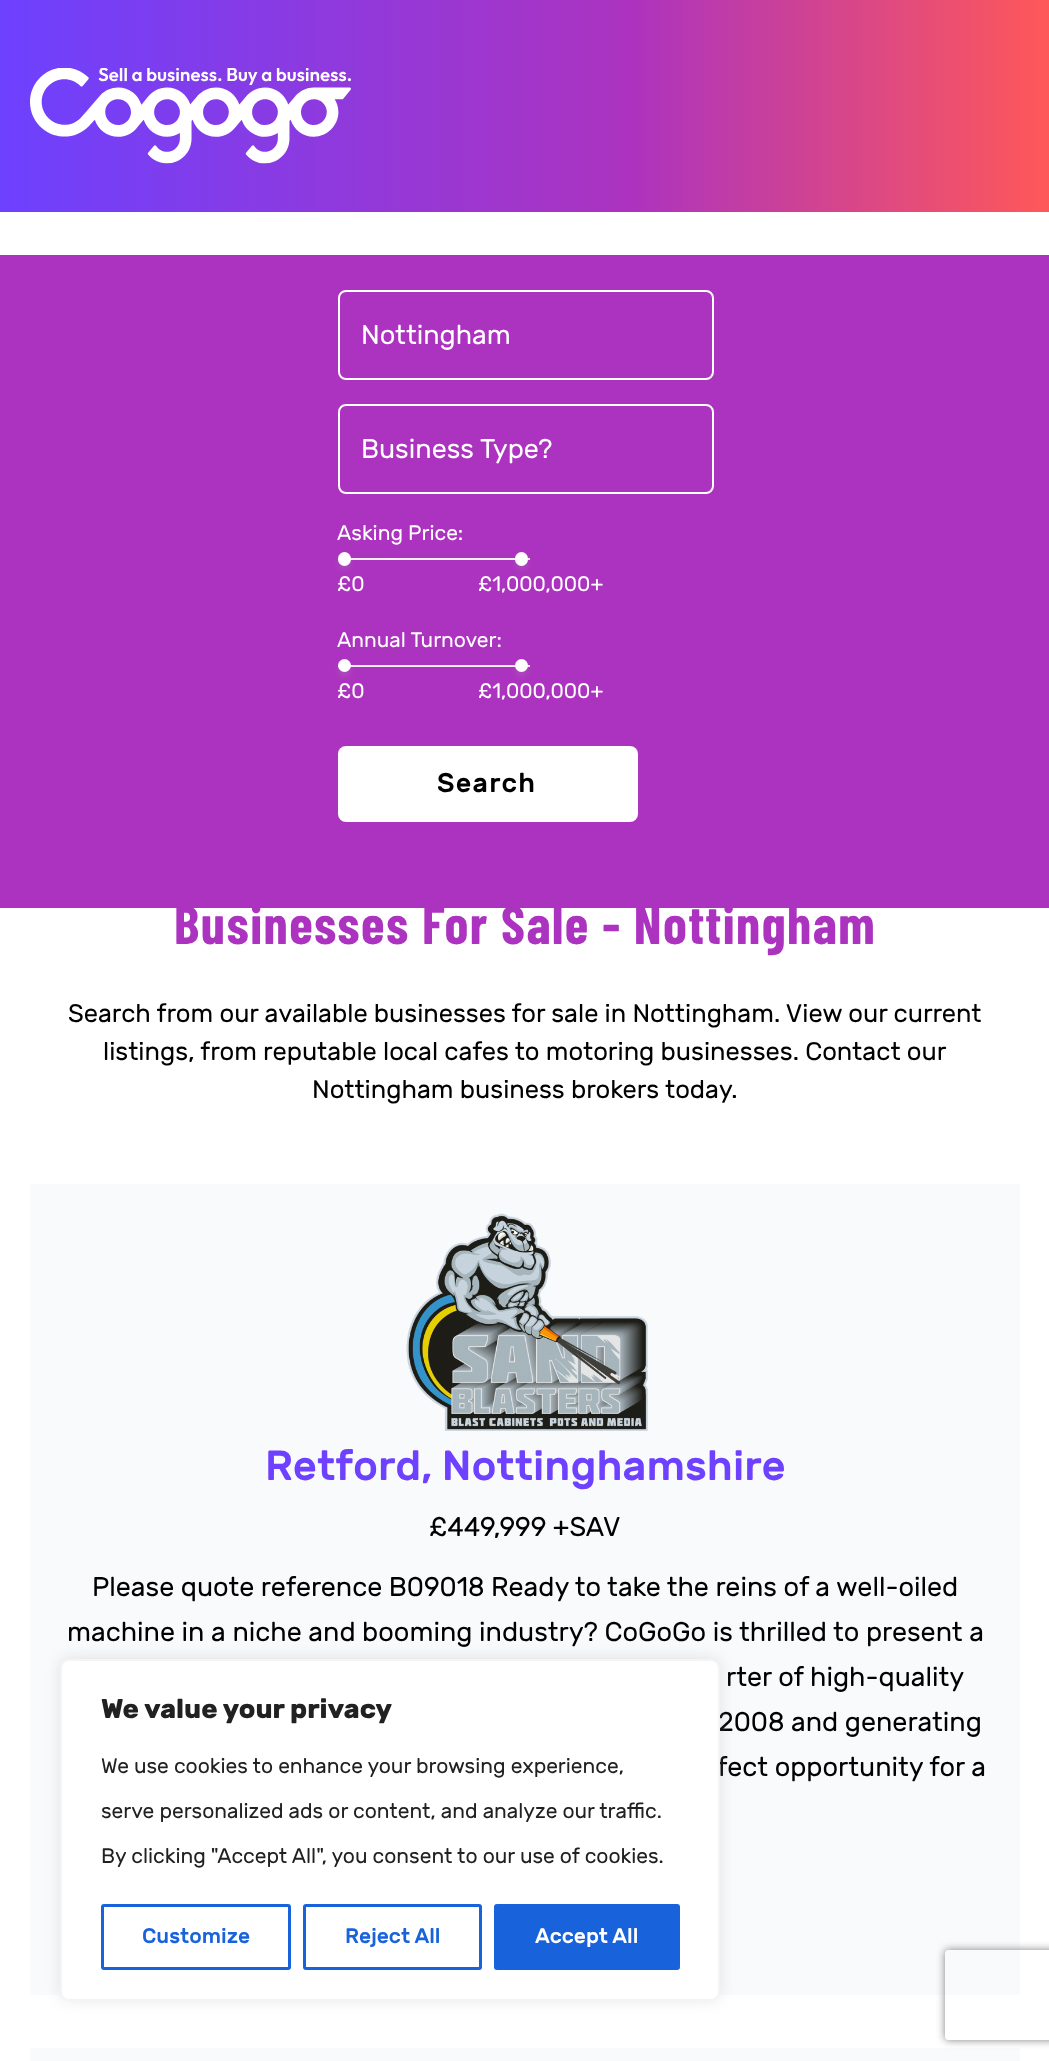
(async () => {
const canvas = document.querySelector("canvas")
canvas.width = 1049
canvas.height = 2061
const c = canvas.getContext("2d")
c.miterLimit = 4
c.fontKerning = "normal"
function T(s,x,y){c.fillText(s,x,y)}
function R(x,y,w,h){c.fillRect(x,y,w,h)}
function Q(x,y,w,h,r){c.beginPath();c.roundRect(x,y,w,h,r);c.fill()}
async function I(src,x,y,w,h){const img=new Image();img.src=src;await img.decode();c.drawImage(img,x,y,w,h)}
let gradient, path
c.fillStyle="#fff"
R(0,0,1049,2061)
gradient = c.createLinearGradient(0,106,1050,106)
gradient.addColorStop(0,"#6d41ff")
gradient.addColorStop(.6,"#ac33bf")
gradient.addColorStop(1,"#ff5858")
c.fillStyle = gradient
R(0,0,1049,212)
await I("1.png",30,68,321,96)
c.fillStyle="#ac33bf"
R(0,255,1049,653)
c.beginPath()
c.roundRect(339,291,374,88,7)
c.strokeStyle="#fff"
c.lineWidth=2
c.stroke()
c.font="27px Rubik"
c.fillStyle="#fff"
T("Nottingham",361,344)
c.beginPath()
c.roundRect(339,405,374,88,7)
c.stroke()
T("Business Type?",361,458)
c.font="21px Rubik"
T("Asking Price:",337,540)
c.fillStyle="#f0f0f0"
R(338,558,192,2)
c.fillStyle="#bbb"
c.filter="blur(4.5px)"
c.beginPath()
c.roundRect(342,561,5,5,2.5)
c.fill()
c.filter="none"
c.fillStyle="#fff"
Q(338,552,13,14,6.5)
c.fillStyle="#bbb"
c.filter="blur(4.5px)"
c.beginPath()
c.roundRect(519,561,5,5,2.5)
c.fill()
c.filter="none"
c.fillStyle="#fff"
Q(515,552,13,14,6.5)
T("£0",337,591)
T("£1,000,000+",478,591)
T("Annual Turnover:",337,647)
c.fillStyle="#f0f0f0"
R(338,665,192,2)
c.fillStyle="#bbb"
c.filter="blur(4.5px)"
c.beginPath()
c.roundRect(342,668,5,5,2.5)
c.fill()
c.filter="none"
c.fillStyle="#fff"
c.beginPath()
c.arc(344.5,665.5,6.5,0,7)
c.fill()
c.fillStyle="#bbb"
c.filter="blur(4.5px)"
c.beginPath()
c.roundRect(519,668,5,5,2.5)
c.fill()
c.filter="none"
c.fillStyle="#fff"
c.beginPath()
c.arc(521.5,665.5,6.5,0,7)
c.fill()
T("£0",337,698)
T("£1,000,000+",478,698)
Q(338,746,300,76,8)
c.letterSpacing="1.25px"
c.font="500 27px Rubik"
c.fillStyle="#000"
T("Search",437,792)
c.letterSpacing="1.5px"
c.font="bold 54px Barlow Condensed"
c.fillStyle="#ac33bf"
T("Businesses For Sale - Nottingham",174,944)
c.letterSpacing="0px"
c.font="25.5px Rubik"
c.fillStyle="#000"
T("Search from our available businesses for sale in Nottingham. View our current",68,1022)
T("listings, from reputable local cafes to motoring businesses. Contact our",103,1060)
T("Nottingham business brokers today.",312,1098)
c.fillStyle="#f9fafb"
R(30,1184,990,811)
await I("2.png",406,1213,242,218)
c.font="500 42px Rubik"
c.fillStyle="#6d41ff"
T("Retford, Nottinghamshire",265,1480)
c.font="27px Rubik"
c.fillStyle="#000"
T("£449,999 +SAV",429,1536)
T("Please quote reference B09018 Ready to take the reins of a well-oiled",92,1596)
T("machine in a niche and booming industry? CoGoGo is thrilled to present a",67,1641)
T("rter of high-quality",726,1686)
T("2008 and generating",718,1731)
T("fect opportunity for a",717,1776)
c.fillStyle="#f9fafb"
R(30,2048,990,13)
c.fillStyle="#acabab4d"
c.filter="blur(7.5px)"
c.beginPath()
c.roundRect(60,1658,660,342,9)
c.fill()
c.filter="none"
c.fillStyle="#fff"
c.beginPath()
c.roundRect(61,1660,658,340,8)
c.fill()
c.strokeStyle="#f4f4f4"
c.stroke()
c.font="bold 27px Rubik"
c.fillStyle="#212121"
T("We value your privacy",101,1718)
c.font="21px Rubik"
T("We use cookies to enhance your browsing experience,",101,1773)
T("serve personalized ads or content, and analyze our traffic.",101,1818)
T("By clicking \"Accept All\", you consent to our use of cookies.",101,1863)
c.beginPath()
c.roundRect(102.5,1905.5,187,63,1.5)
c.strokeStyle="#1863dc"
c.lineWidth=3
c.stroke()
c.font="500 21px Rubik"
c.fillStyle="#1863dc"
T("Customize",142,1943)
c.beginPath()
c.roundRect(304.5,1905.5,176,63,1.5)
c.stroke()
T("Reject All",345,1943)
c.beginPath()
c.roundRect(495.5,1905.5,183,63,1.5)
c.fill()
c.stroke()
c.fillStyle="#fff"
T("Accept All",535,1943)
c.save()
path = new Path2D("M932 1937h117v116h-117zm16 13h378c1.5 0 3 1.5 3 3v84c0 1.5-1.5 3-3 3h-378c-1.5 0-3-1.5-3-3v-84c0-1.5 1.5-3 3-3z")
c.clip(path,"evenodd")
c.fillStyle="#808080"
c.filter="blur(4px)"
c.beginPath()
c.roundRect(945,1950,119,90,3)
c.fill()
c.filter="none"
c.restore()
})()
